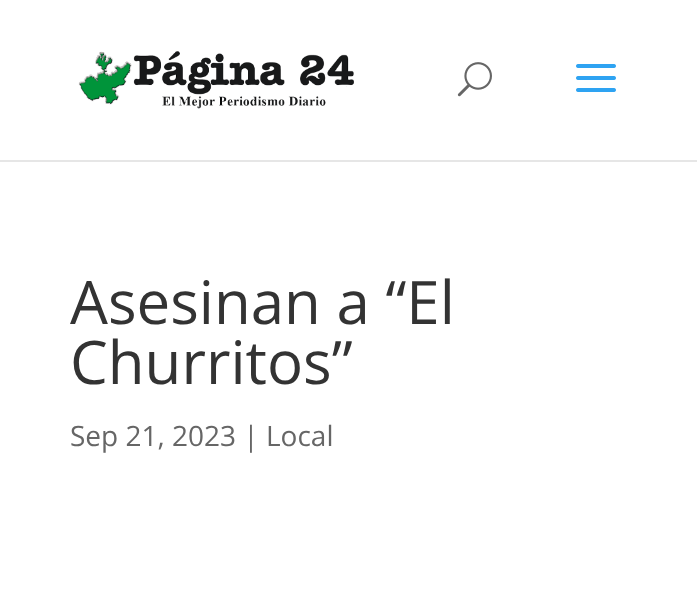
(async () => {
const canvas = document.querySelector("canvas")
canvas.width = 697
canvas.height = 589
const c = canvas.getContext("2d")
c.miterLimit = 4
c.fontKerning = "normal"
function T(s,x,y){c.fillText(s,x,y)}
function R(x,y,w,h){c.fillRect(x,y,w,h)}
async function I(src,x,y,w,h){const img=new Image();img.src=src;await img.decode();c.drawImage(img,x,y,w,h)}
c.fillStyle="#fff"
R(0,0,697,589)
c.fillStyle="#e6e6e6"
R(0,160,697,2)
await I("1.png",78,51,276,58)
await I("2.png",457,62,35,35)
await I("3.png",576,64,40,28)
c.font="60px Open Sans"
c.fillStyle="#333"
T("Asesinan a “El",70,324)
T("Churritos”",70,384)
c.font="28px Open Sans"
c.fillStyle="#666"
T("Sep 21, 2023 | Local",70,446)
})()
